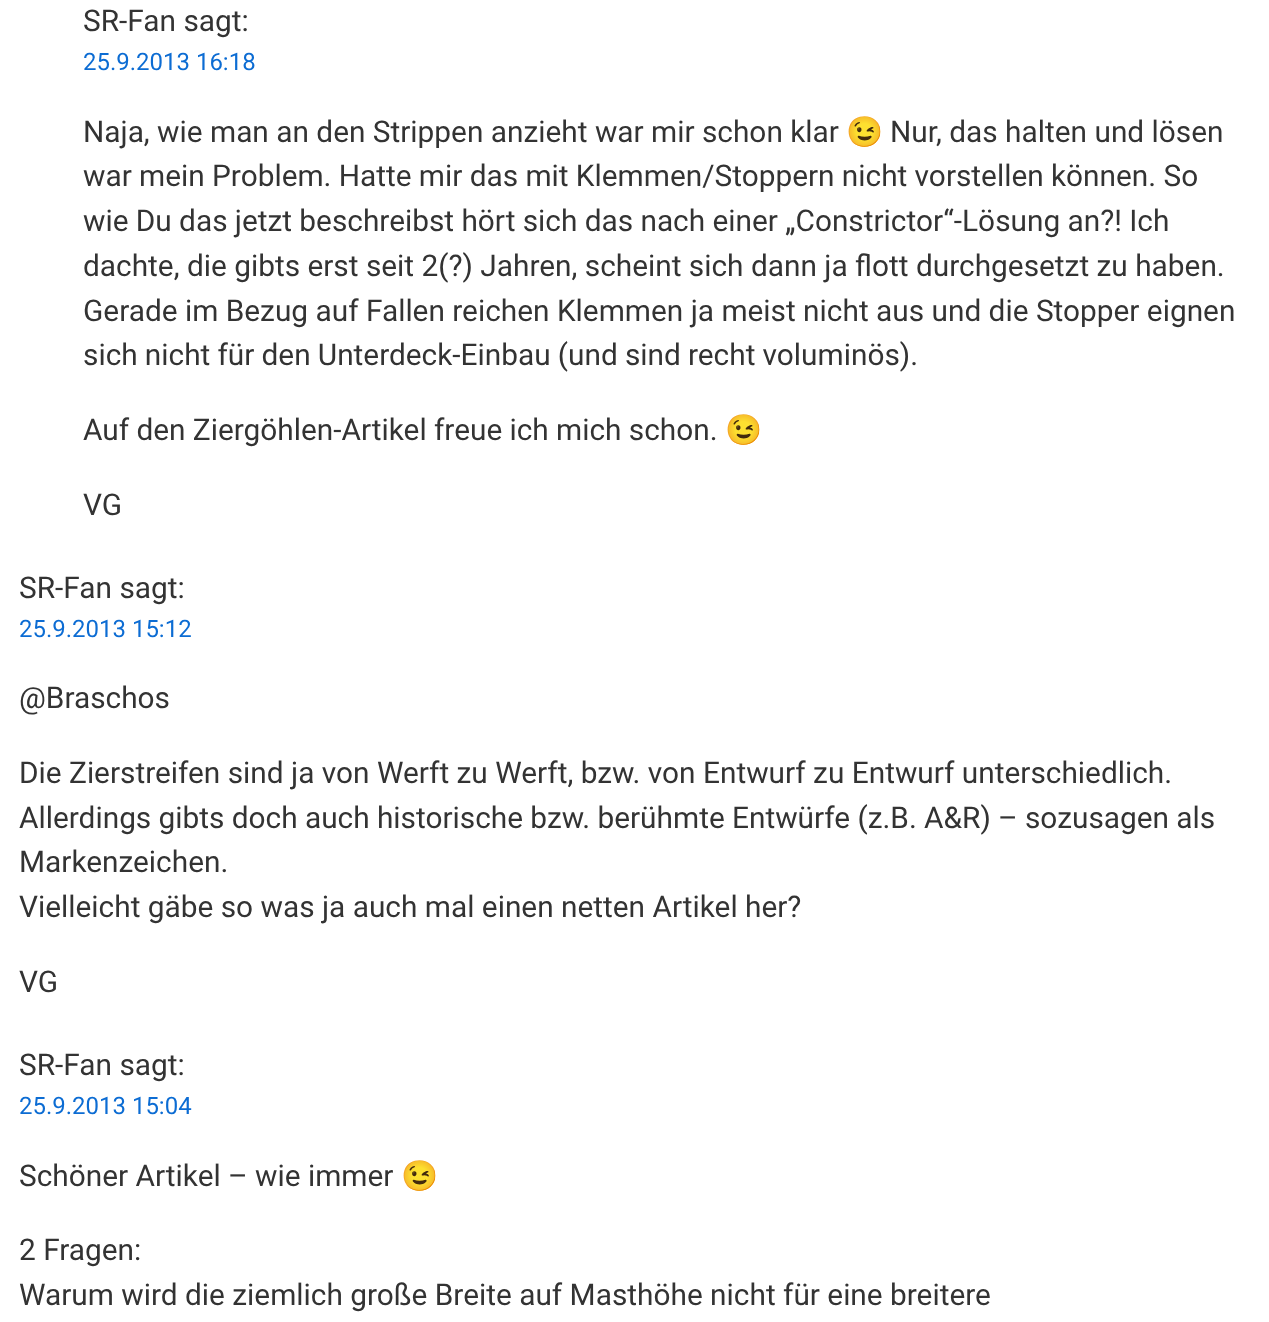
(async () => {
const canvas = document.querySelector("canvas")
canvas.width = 1269
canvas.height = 1322
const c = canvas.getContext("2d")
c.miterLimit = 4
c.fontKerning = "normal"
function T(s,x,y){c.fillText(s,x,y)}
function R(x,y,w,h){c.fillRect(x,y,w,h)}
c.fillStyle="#fff"
R(0,0,1269,1322)
c.font="29.85px Roboto"
c.fillStyle="#333"
T("SR-Fan sagt:",83,31)
c.font="24px Roboto"
c.fillStyle="#0c6cd3"
T("25.9.2013 16:18",83,70)
c.font="29.85px Roboto"
c.fillStyle="#333"
T("Naja, wie man an den Strippen anzieht war mir schon klar",83,142)
c.font="29.85px Noto Color Emoji"
T("😉",846,142)
c.font="29.85px Roboto"
T("Nur, das halten und lösen",890,142)
c.wordSpacing="-0.1px"
T("war mein Problem. Hatte mir das mit Klemmen/Stoppern nicht vorstellen können. So",83,186)
T("wie Du das jetzt beschreibst hört sich das nach einer „Constrictor“-Lösung an?! Ich",83,231)
c.wordSpacing="0px"
T("dachte, die gibts erst seit 2(?) Jahren, scheint sich dann ja flott durchgesetzt zu haben.",83,276)
T("Gerade im Bezug auf Fallen reichen Klemmen ja meist nicht aus und die Stopper eignen",83,321)
c.wordSpacing="-0.25px"
T("sich nicht für den Unterdeck-Einbau (und sind recht voluminös).",83,365)
c.wordSpacing="-0.1px"
T("Auf den Ziergöhlen-Artikel freue ich mich schon.",83,440)
c.wordSpacing="0px"
c.font="29.85px Noto Color Emoji"
T("😉",725,440)
c.font="29.85px Roboto"
T("VG",83,515)
T("SR-Fan sagt:",19,598)
c.font="24px Roboto"
c.fillStyle="#0c6cd3"
T("25.9.2013 15:12",19,637)
c.font="29.85px Roboto"
c.fillStyle="#333"
T("@Braschos",19,708)
T("Die Zierstreifen sind ja von Werft zu Werft, bzw. von Entwurf zu Entwurf unterschiedlich.",19,783)
c.wordSpacing="-0.1px"
T("Allerdings gibts doch auch historische bzw. berühmte Entwürfe (z.B. A&R) – sozusagen als",19,828)
c.wordSpacing="0px"
T("Markenzeichen.",19,872)
T("Vielleicht gäbe so was ja auch mal einen netten Artikel her?",19,917)
T("VG",19,992)
T("SR-Fan sagt:",19,1075)
c.font="24px Roboto"
c.fillStyle="#0c6cd3"
T("25.9.2013 15:04",19,1114)
c.font="29.85px Roboto"
c.fillStyle="#333"
T("Schöner Artikel – wie immer",19,1186)
c.font="29.85px Noto Color Emoji"
T("😉",401,1186)
c.font="29.85px Roboto"
T("2 Fragen:",19,1260)
T("Warum wird die ziemlich große Breite auf Masthöhe nicht für eine breitere",19,1305)
})()
